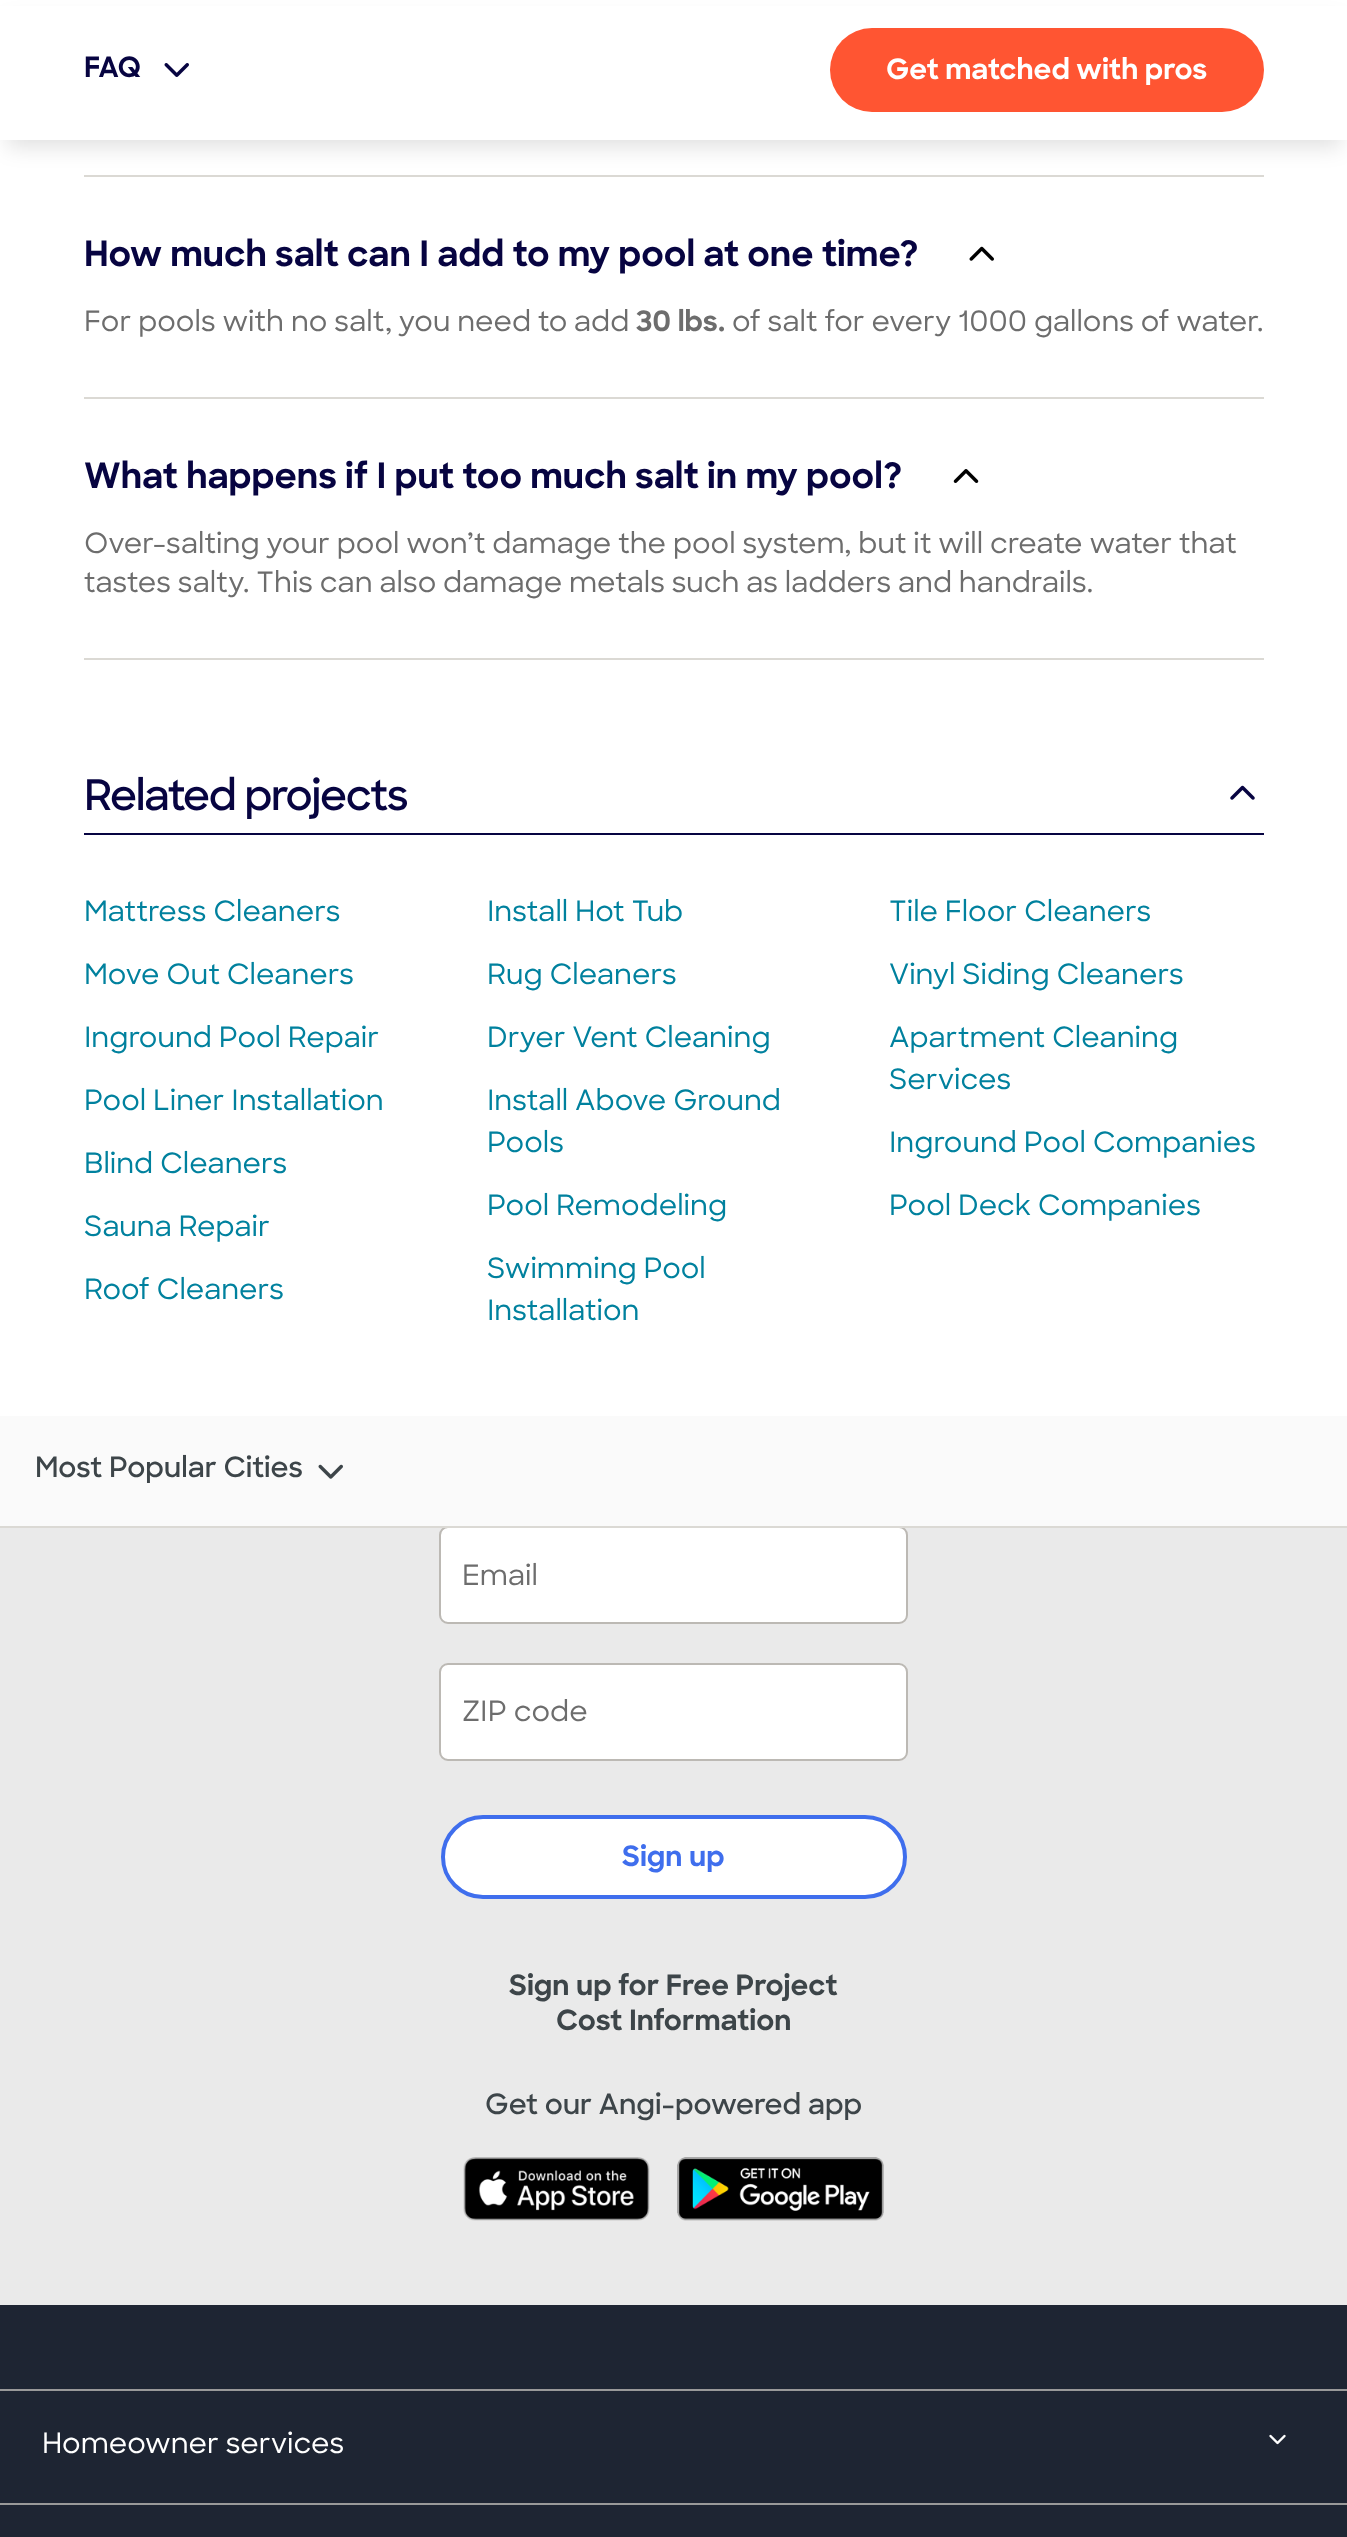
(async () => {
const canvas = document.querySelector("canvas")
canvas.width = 1347
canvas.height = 2537
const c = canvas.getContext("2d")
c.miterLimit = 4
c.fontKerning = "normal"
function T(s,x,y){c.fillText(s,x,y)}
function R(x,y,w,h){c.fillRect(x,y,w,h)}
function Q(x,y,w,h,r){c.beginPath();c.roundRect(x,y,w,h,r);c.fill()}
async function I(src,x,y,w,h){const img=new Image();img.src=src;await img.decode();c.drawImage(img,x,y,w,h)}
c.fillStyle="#fff"
R(0,0,1347,2537)
c.fillStyle="#dbd9d4"
R(84,175,1180,2)
c.fillStyle="#0000001f"
c.filter="blur(10.5px)"
c.beginPath()
c.rect(7,21,1334,126)
c.fill()
c.filter="none"
c.fillStyle="#fff"
R(0,6,1347,134)
c.font="bold 28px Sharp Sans"
c.fillStyle="#070441"
T("FAQ",84,77)
await I("1.png",164,63,25,14)
c.fillStyle="#ff5532"
Q(830,28,434,84,42)
c.fillStyle="#fff"
T("Get matched with pros",886,79)
c.fillStyle="#dbd9d4"
R(84,397,1180,2)
c.font="bold 35px Sharp Sans"
c.fillStyle="#070441"
T("How much salt can I add to my pool at one time?",84,266)
await I("2.png",969,246,25,15)
c.font="500 28px Sharp Sans"
c.fillStyle="#6d6d6d"
T("For pools with no salt, you need to add",84,331)
c.font="bold 28px Sharp Sans"
T("30 lbs.",636,331)
c.font="500 28px Sharp Sans"
T("of salt for every 1000 gallons of water.",732,331)
c.fillStyle="#dbd9d4"
R(84,658,1180,2)
c.font="bold 35px Sharp Sans"
c.fillStyle="#070441"
T("What happens if I put too much salt in my pool?",84,488)
await I("3.png",953,469,26,14)
c.font="500 28px Sharp Sans"
c.fillStyle="#6d6d6d"
T("Over-salting your pool won’t damage the pool system, but it will create water that",84,553)
T("tastes salty. This can also damage metals such as ladders and handrails.",84,592)
c.fillStyle="#070441"
R(84,833,1180,2)
c.letterSpacing="-1.25px"
c.font="600 42px Sharp Sans"
T("Related projects",84,810)
await I("4.png",1230,785,25,15)
c.letterSpacing="0px"
c.font="500 28px Sharp Sans"
c.fillStyle="#00819e"
T("Mattress Cleaners",84,921)
T("Install Hot Tub",487,921)
T("Tile Floor Cleaners",889,921)
T("Move Out Cleaners",84,984)
T("Rug Cleaners",487,984)
T("Vinyl Siding Cleaners",889,984)
T("Inground Pool Repair",84,1047)
T("Dryer Vent Cleaning",487,1047)
T("Apartment Cleaning",889,1047)
T("Services",889,1089)
T("Pool Liner Installation",84,1110)
T("Install Above Ground",487,1110)
T("Pools",487,1152)
T("Inground Pool Companies",889,1152)
T("Blind Cleaners",84,1173)
T("Pool Remodeling",487,1215)
T("Pool Deck Companies",889,1215)
T("Sauna Repair",84,1236)
T("Roof Cleaners",84,1299)
T("Swimming Pool",487,1278)
T("Installation",487,1320)
c.fillStyle="#fafafa"
R(0,1416,1347,110)
c.fillStyle="#eaeaea"
R(0,1528,1347,777)
c.fillStyle="#fff"
Q(441,1528,466,94,7)
c.beginPath()
c.roundRect(440,1527,467,96,8)
c.strokeStyle="#bcb9b4"
c.lineWidth=2
c.stroke()
c.fillStyle="#dbd9d4"
R(0,1526,1347,2)
c.font="600 28px Sharp Sans"
c.fillStyle="#3d4549"
T("Most Popular Cities",35,1477)
await I("5.png",318,1464,25,15)
c.font="500 28px Sharp Sans"
c.fillStyle="#6d6d6d"
T("Email",462,1585)
c.fillStyle="#fff"
Q(441,1664,466,95,7)
c.beginPath()
c.roundRect(440,1664,467,96,8)
c.stroke()
c.fillStyle="#6d6d6d"
T("ZIP code",462,1721)
c.fillStyle="#fff"
c.beginPath()
c.roundRect(443,1817,462,80,40)
c.fill()
c.strokeStyle="#3f6eed"
c.lineWidth=4
c.stroke()
c.font="bold 28px Sharp Sans"
c.fillStyle="#3f6eed"
T("Sign up",622,1866)
c.fillStyle="#3d4549"
T("Sign up for Free Project",509,1995)
T("Cost Information",556,2030)
c.font="600 28px Sharp Sans"
T("Get our Angi-powered app",485,2114)
await I("6.png",463,2157,187,64)
await I("7.png",677,2157,207,64)
c.fillStyle="#1e2533"
R(0,2305,1347,232)
c.fillStyle="#999"
R(0,2389,1347,2)
c.font="500 28px Sharp Sans"
c.fillStyle="#fff"
T("Homeowner services",42,2453)
await I("8.png",1269,2434,17,11)
c.fillStyle="#999"
R(0,2503,1347,2)
})()
